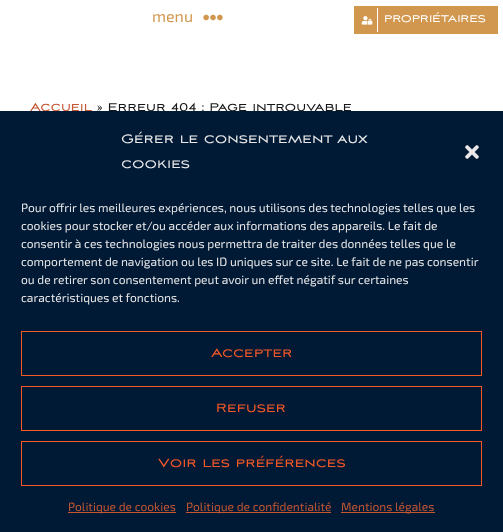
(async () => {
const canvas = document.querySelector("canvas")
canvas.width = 503
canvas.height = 532
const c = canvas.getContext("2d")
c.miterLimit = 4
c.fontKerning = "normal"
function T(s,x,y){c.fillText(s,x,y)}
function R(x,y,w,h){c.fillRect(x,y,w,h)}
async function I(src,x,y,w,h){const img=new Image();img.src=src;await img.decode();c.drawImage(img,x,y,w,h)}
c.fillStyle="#fff"
R(0,0,503,532)
c.font="16px 'Exo 2'"
c.fillStyle="#d2974e"
T("menu",152,22)
await I("1.png",203,14,20,7)
R(354,6,144,28)
c.fillStyle="#fff"
R(377,8,1,24)
await I("2.png",361,16,12,9)
c.font="12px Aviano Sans"
T("PROPRIÉTAIRES",384,22)
c.font="14px Aviano Sans"
c.fillStyle="#c55632"
T("Accueil",30,111)
c.fillStyle="#141617"
T("» Erreur 404 : Page introuvable",97,111)
c.fillStyle="#001935"
R(0,111,503,421)
c.font="15px Aviano Sans"
c.fillStyle="#e8e8e8"
T("Gérer le consentement aux",121,143)
T("cookies",121,168)
await I("3.png",465,145,14,14)
c.font="12px 'Exo 2'"
T("Pour offrir les meilleures expériences, nous utilisons des technologies telles que les",21,212)
T("cookies pour stocker et/ou accéder aux informations des appareils. Le fait de",21,230)
T("consentir à ces technologies nous permettra de traiter des données telles que le",21,248)
T("comportement de navigation ou les ID uniques sur ce site. Le fait de ne pas consentir",21,266)
T("ou de retirer son consentement peut avoir un effet négatif sur certaines",21,284)
T("caractéristiques et fonctions.",21,302)
c.strokeStyle="#f35827"
c.strokeRect(21.5,331.5,460,44)
c.font="15px Aviano Sans"
c.fillStyle="#f35827"
T("Accepter",211,357)
c.strokeRect(21.5,386.5,460,44)
T("Refuser",216,412)
c.strokeRect(21.5,441.5,460,44)
T("Voir les préférences",158,467)
c.fillStyle="#c55632"
R(68,512,108,1)
c.font="12px 'Exo 2'"
T("Politique de cookies",68,511)
R(186,512,145,1)
T("Politique de confidentialité",186,511)
R(341,512,94,1)
T("Mentions légales",341,511)
})()
